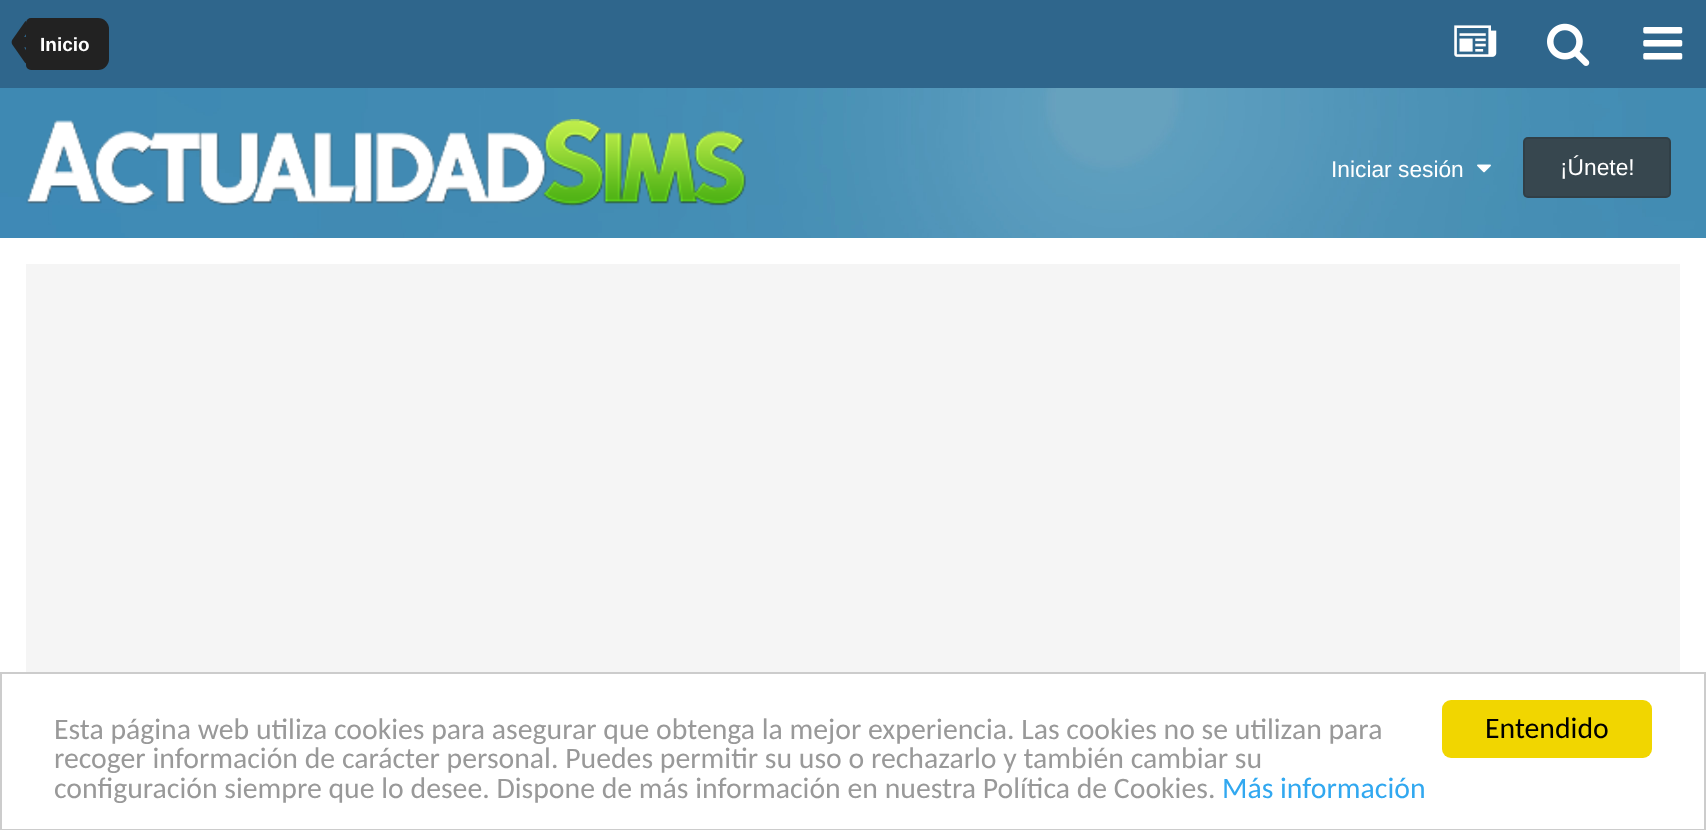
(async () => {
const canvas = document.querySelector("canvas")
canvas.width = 1706
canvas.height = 830
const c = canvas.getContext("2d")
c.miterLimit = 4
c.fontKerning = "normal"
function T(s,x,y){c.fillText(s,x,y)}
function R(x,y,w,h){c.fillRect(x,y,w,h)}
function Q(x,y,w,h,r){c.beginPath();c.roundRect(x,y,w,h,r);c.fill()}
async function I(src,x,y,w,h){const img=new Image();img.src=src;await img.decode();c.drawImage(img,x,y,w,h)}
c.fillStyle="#fff"
R(0,0,1706,830)
await I("1.png",0,88,1706,150)
c.fillStyle="#2f668c"
R(0,0,1706,88)
c.fillStyle="#222"
c.beginPath()
c.roundRect(26,18,83,52,[5,11,11,5])
c.fill()
await I("2.png",11,21,15,43)
c.font="bold 19px Liberation Sans"
c.fillStyle="#fff"
T("Inicio",40,51)
await I("3.png",1454,25,43,32)
await I("4.png",1547,23,43,43)
await I("5.png",1643,27,40,33)
await I("6.png",26,119,720,88)
c.font="22.75px Liberation Sans"
T("Iniciar sesión",1331,177)
await I("7.png",1477,164,14,9)
c.fillStyle="#37474f"
Q(1523,137,148,61,5)
c.beginPath()
c.roundRect(1524,138,146,59,4)
c.strokeStyle="#0000001a"
c.lineWidth=2
c.stroke()
c.fillStyle="#fff"
T("¡Únete!",1560,175)
c.fillStyle="#f5f5f5"
R(26,264,1654,408)
c.strokeStyle="#ccc"
c.strokeRect(1,673,1704,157)
c.font="29.75px Carlito"
c.fillStyle="#999"
T("Esta página web utiliza cookies para asegurar que obtenga la mejor experiencia. Las cookies no se utilizan para",54,739)
T("recoger información de carácter personal. Puedes permitir su uso o rechazarlo y también cambiar su",54,768)
T("configuración siempre que lo desee. Dispone de más información en nuestra Política de Cookies.",54,798)
c.fillStyle="#31a8f0"
T("Más información",1222,798)
c.fillStyle="#f1d600"
Q(1442,700,210,58,9)
c.fillStyle="#000"
T("Entendido",1485,738)
})()
